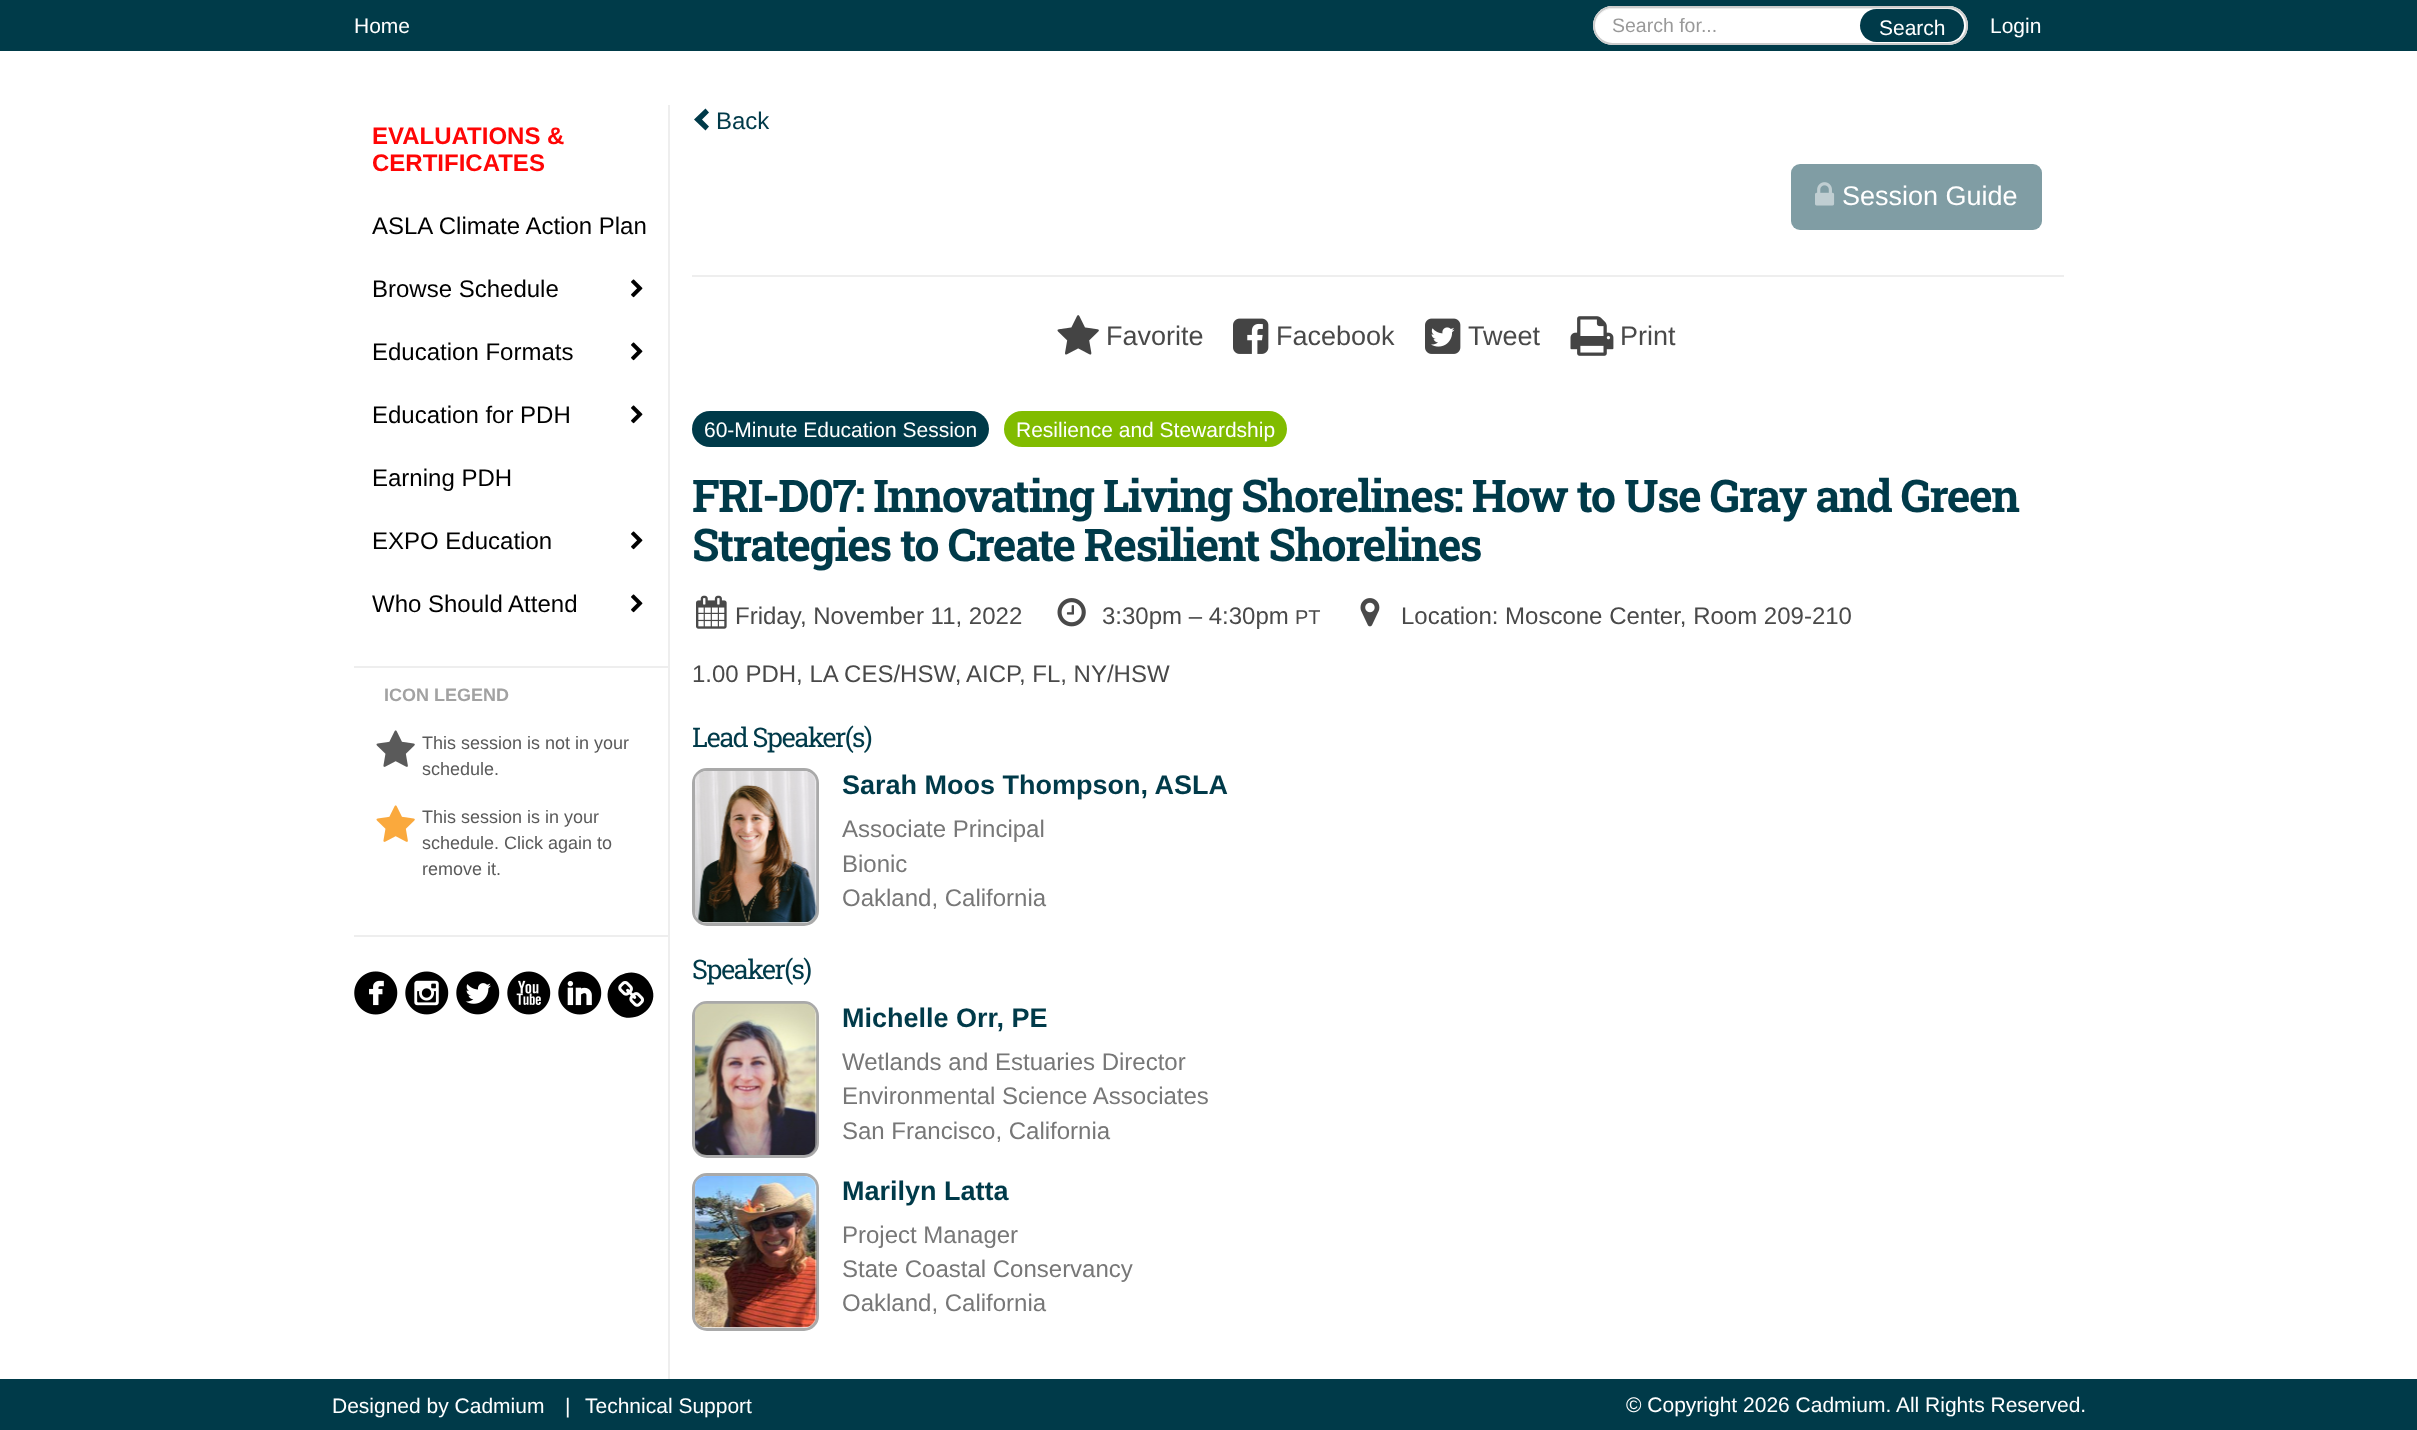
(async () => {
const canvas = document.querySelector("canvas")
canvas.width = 2417
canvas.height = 1430
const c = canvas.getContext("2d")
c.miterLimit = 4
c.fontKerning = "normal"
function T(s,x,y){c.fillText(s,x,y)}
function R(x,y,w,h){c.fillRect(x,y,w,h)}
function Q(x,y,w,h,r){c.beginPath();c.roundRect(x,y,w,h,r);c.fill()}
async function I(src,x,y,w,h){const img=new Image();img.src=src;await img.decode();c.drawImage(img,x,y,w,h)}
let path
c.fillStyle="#fff"
R(0,0,2417,1430)
c.fillStyle="#003b49"
R(0,0,2417,51)
c.font="21px Liberation Sans"
c.fillStyle="#fff"
T("Home",354,33)
Q(1593,6,375,39,19.5)
c.fillStyle="#ececec"
path = new Path2D("M1612 9h336c17 0 22 17 15 28c3-3 4-7 4-11c0-10-8-18-18-18h-336c-8 0-15 6-17 14c2-7 8-13 16-13z")
c.fill(path)
c.beginPath()
c.roundRect(1594,7,373,37,18.5)
c.strokeStyle="#ccc"
c.lineWidth=2
c.stroke()
c.font="19.5px Liberation Sans"
c.fillStyle="#999"
T("Search for...",1612,32)
c.fillStyle="#003a49"
Q(1860,9,104,33,16.5)
c.font="21px Liberation Sans"
c.fillStyle="#fff"
T("Search",1879,35)
T("Login",1990,33)
c.fillStyle="#eee"
R(668,105,2,1274)
c.font="bold 24px Liberation Sans"
c.fillStyle="#ff0505"
T("EVALUATIONS &",372,144)
T("CERTIFICATES",372,171)
c.font="24px Liberation Sans"
c.fillStyle="#000"
T("ASLA Climate Action Plan",372,234)
T("Browse Schedule",372,297)
await I("1.png",631,279,12,19)
T("Education Formats",372,360)
await I("1.png",631,342,12,19)
T("Education for PDH",372,423)
await I("1.png",631,405,12,19)
T("Earning PDH",372,486)
T("EXPO Education",372,549)
await I("1.png",631,531,12,19)
T("Who Should Attend",372,612)
await I("1.png",631,594,12,19)
c.fillStyle="#eee"
R(354,666,314,2)
c.font="bold 18px Liberation Sans"
c.fillStyle="#a2a2a2"
T("ICON LEGEND",384,701)
await I("2.png",376,730,39,37)
c.font="18px Liberation Sans"
c.fillStyle="#5a5a5a"
T("This session is not in your",422,749)
T("schedule.",422,775)
await I("3.png",376,805,39,37)
T("This session is in your",422,823)
T("schedule. Click again to",422,849)
T("remove it.",422,875)
c.fillStyle="#eee"
R(354,935,314,2)
await I("4.png",354,971,44,44)
await I("5.png",405,971,44,44)
await I("6.png",456,971,44,44)
await I("7.png",507,971,44,44)
await I("8.png",558,971,44,44)
c.fillStyle="#000"
path = new Path2D("M650 984c15 25-24 48-39 23c-15-26 24-49 39-23z")
c.fill(path)
await I("9.png",618,981,26,26)
c.fillStyle="#003a49"
path = new Path2D("M709 112.5l-7 7l7 7l-3.5 4l-11.5-11l11.5-11z")
c.fill(path)
c.font="24px Liberation Sans"
T("Back",716,129)
c.fillStyle="#809da4"
Q(1791,164,251,66,9)
await I("10.png",1815,182,20,24)
c.font="27px Liberation Sans"
c.fillStyle="#fff"
T("Session Guide",1842,205)
c.fillStyle="#eee"
R(692,275,1372,2)
await I("11.png",1057,315,42,40)
c.fillStyle="#494949"
T("Favorite",1106,345)
await I("12.png",1233,318,36,36)
T("Facebook",1276,345)
await I("13.png",1425,318,36,36)
T("Tweet",1468,345)
await I("14.png",1570,316,44,40)
T("Print",1620,345)
c.fillStyle="#003a49"
Q(692,411,297,36,18)
c.font="21px Liberation Sans"
c.fillStyle="#fff"
T("60-Minute Education Session",704,437)
c.fillStyle="#81bc00"
Q(1004,411,283,36,18)
c.fillStyle="#fff"
T("Resilience and Stewardship",1016,437)
c.letterSpacing="-1.5px"
c.font="bold 45px Roboto Slab"
c.fillStyle="#003a49"
T("FRI-D07: Innovating Living Shorelines: How to Use Gray and Green",692,512)
T("Strategies to Create Resilient Shorelines",692,561)
await I("15.png",696,595,31,34)
c.letterSpacing="0px"
c.font="24px Liberation Sans"
c.fillStyle="#494949"
T("Friday, November 11, 2022",735,624)
await I("16.png",1057,598,29,29)
T("3:30pm – 4:30pm",1102,624)
c.font="20px Liberation Sans"
T("PT",1295,624)
await I("17.png",1360,598,20,29)
c.font="24px Liberation Sans"
T("Location: Moscone Center, Room 209-210",1401,624)
T("1.00 PDH, LA CES/HSW,",692,682)
T("AICP, FL, NY/HSW",966,682)
c.letterSpacing="-1.5px"
c.font="27px Roboto Slab"
c.fillStyle="#003a49"
T("Lead Speaker(s)",692,747)
c.beginPath()
c.roundRect(693.5,769.5,124,155,13.5)
c.strokeStyle="#a9a9a9"
c.lineWidth=3
c.stroke()
await I("18.png",695,771,122,152)
c.letterSpacing="0px"
c.font="bold 27px Liberation Sans"
T("Sarah Moos Thompson, ASLA",842,794)
c.font="24px Liberation Sans"
c.fillStyle="#777"
T("Associate Principal",842,837)
T("Bionic",842,872)
T("Oakland, California",842,906)
c.letterSpacing="-1.5px"
c.font="27px Roboto Slab"
c.fillStyle="#003a49"
T("Speaker(s)",692,979)
c.beginPath()
c.roundRect(693.5,1002.5,124,154,13.5)
c.stroke()
await I("19.png",695,1003,122,152)
c.letterSpacing="0px"
c.font="bold 27px Liberation Sans"
T("Michelle Orr, PE",842,1027)
c.font="24px Liberation Sans"
c.fillStyle="#777"
T("Wetlands and Estuaries Director",842,1070)
T("Environmental Science Associates",842,1104)
T("San Francisco, California",842,1139)
c.beginPath()
c.roundRect(693.5,1174.5,124,155,13.5)
c.stroke()
await I("20.png",695,1176,122,152)
c.font="bold 27px Liberation Sans"
c.fillStyle="#003a49"
T("Marilyn Latta",842,1200)
c.font="24px Liberation Sans"
c.fillStyle="#777"
T("Project Manager",842,1243)
T("State Coastal Conservancy",842,1277)
T("Oakland, California",842,1311)
c.fillStyle="#003a49"
R(0,1379,2417,51)
c.font="21px Liberation Sans"
c.fillStyle="#fff"
T("Designed by Cadmium",332,1413)
T("|",565,1413)
T("Technical Support",585,1413)
T("© Copyright 2026 Cadmium. All Rights Reserved.",1626,1412)
})()
